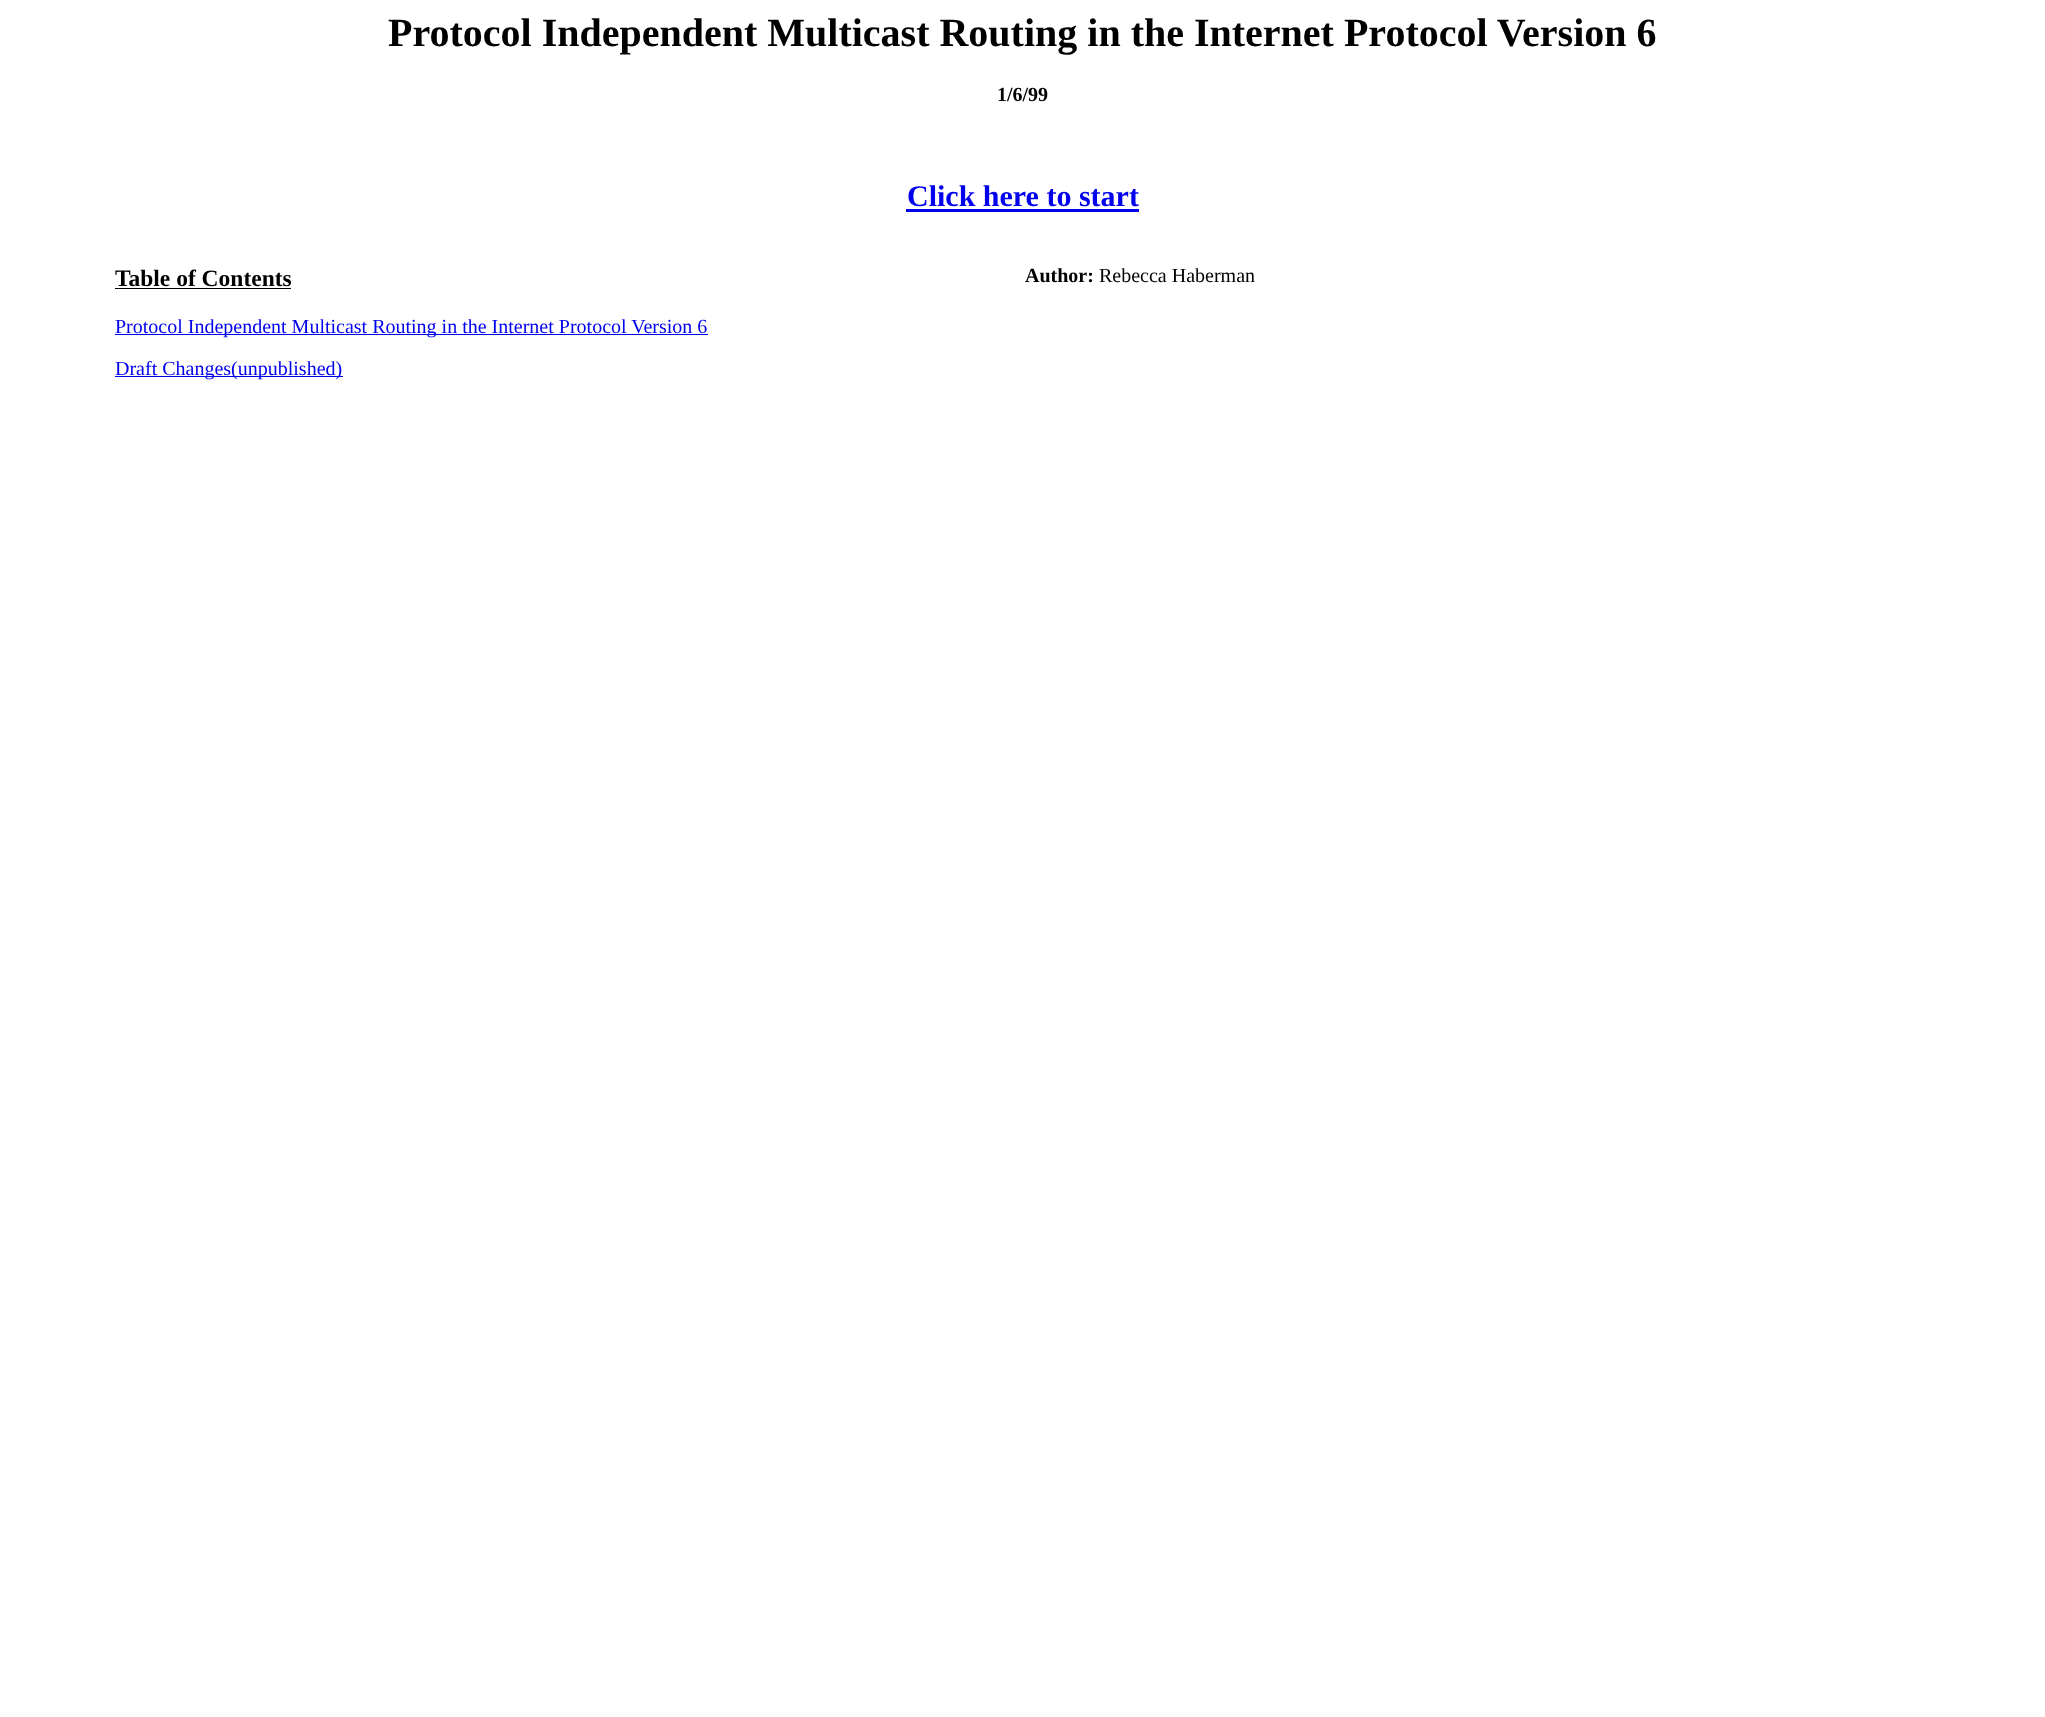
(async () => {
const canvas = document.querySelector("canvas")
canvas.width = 2045
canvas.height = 1717
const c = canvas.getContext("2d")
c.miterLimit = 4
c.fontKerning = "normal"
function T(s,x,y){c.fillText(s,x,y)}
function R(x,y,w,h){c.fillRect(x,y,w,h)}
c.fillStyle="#fff"
R(0,0,2045,1717)
c.font="bold 40px Liberation Serif"
c.fillStyle="#000"
T("Protocol Independent Multicast Routing in the Internet Protocol Version 6",388,46)
c.font="bold 20px Liberation Serif"
T("1/6/99",997,101)
c.font="bold 30px Liberation Serif"
c.fillStyle="#00e"
T("Click here to start",907,206)
R(906,209,233,3)
c.font="bold 23.5px Liberation Serif"
c.fillStyle="#000"
T("Table of Contents",115,286)
R(115,288,176,1)
c.fillStyle="#00e"
R(115,334,593,1)
c.font="20px Liberation Serif"
T("Protocol Independent Multicast Routing in the Internet Protocol Version 6",115,333)
R(115,376,228,1)
T("Draft Changes(unpublished)",115,375)
c.font="bold 20px Liberation Serif"
c.fillStyle="#000"
T("Author:",1025,282)
c.font="20px Liberation Serif"
T("Rebecca Haberman",1099,282)
})()
